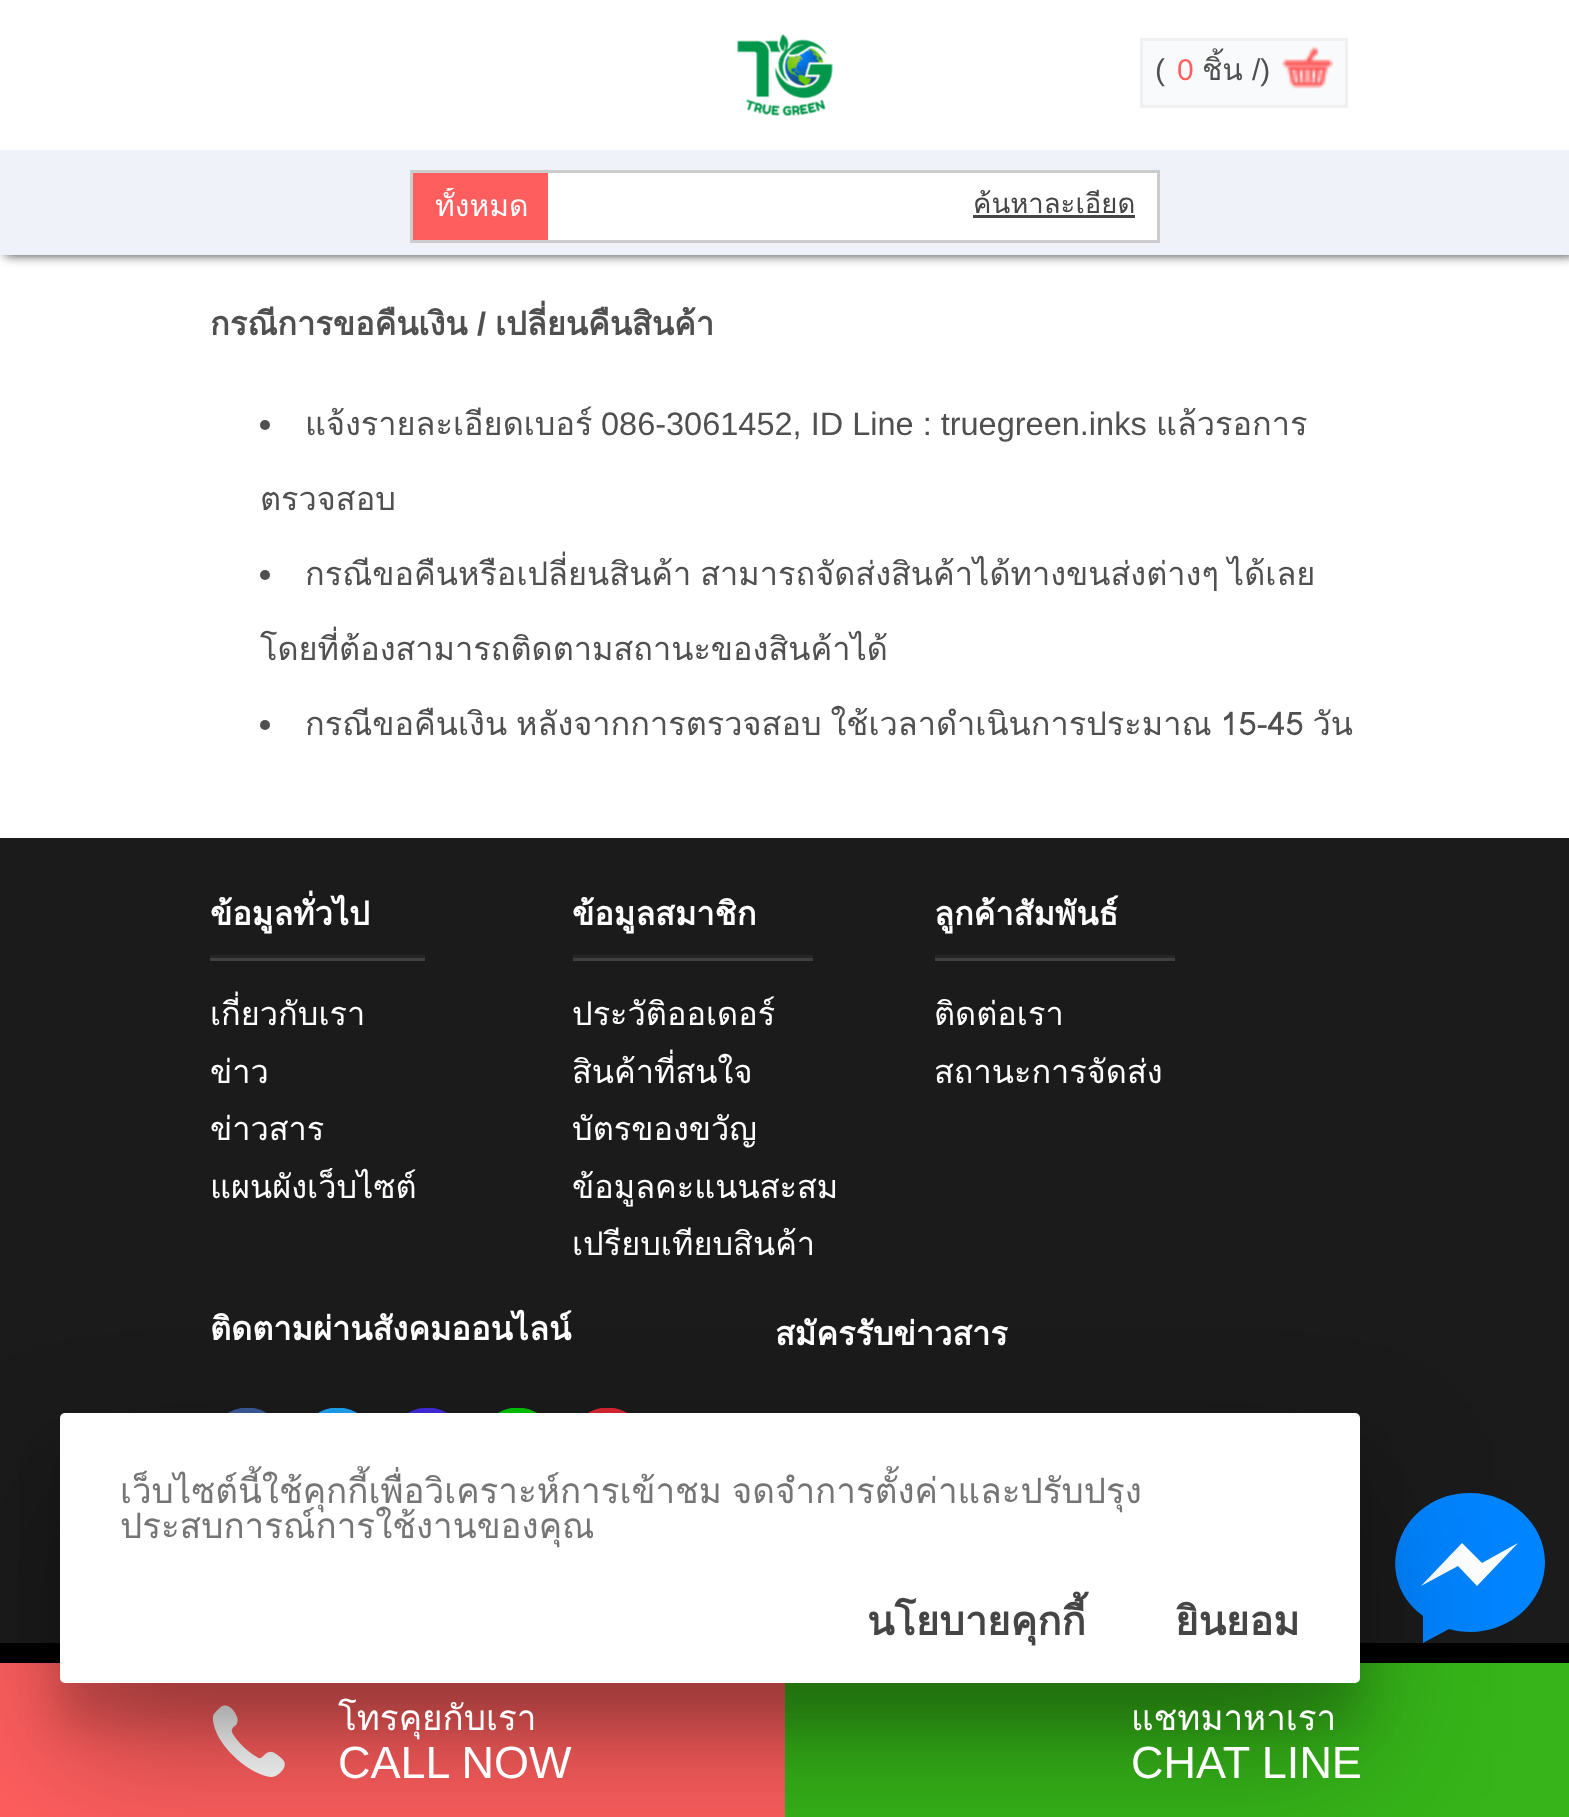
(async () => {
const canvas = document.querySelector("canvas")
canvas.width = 1569
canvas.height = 1817
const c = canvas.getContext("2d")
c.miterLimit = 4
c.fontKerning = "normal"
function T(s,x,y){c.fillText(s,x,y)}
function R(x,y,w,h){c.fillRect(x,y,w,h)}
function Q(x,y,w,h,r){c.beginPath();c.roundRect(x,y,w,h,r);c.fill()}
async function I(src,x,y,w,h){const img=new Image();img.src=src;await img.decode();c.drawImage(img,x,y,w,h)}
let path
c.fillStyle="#fff"
R(0,0,1569,1817)
c.fillStyle="#333"
c.filter="blur(6px)"
c.beginPath()
c.rect(5,0,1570,255)
c.fill()
c.filter="none"
c.fillStyle="#fff"
R(0,0,1569,150)
await I("1.png",737,34,96,82)
c.fillStyle="#f9fafb"
c.beginPath()
c.rect(1141.5,39.5,205,67)
c.fill()
c.strokeStyle="#f0f0f0"
c.lineWidth=3
c.stroke()
c.font="30px Liberation Sans"
c.fillStyle="#505050"
T("(",1155,80)
c.fillStyle="#ff5e5e"
T("0",1177,80)
c.font="30px Loma"
c.fillStyle="#505050"
T("ชิ้น",1202,80)
c.font="30px Liberation Sans"
T("/)",1252,80)
await I("2.png",1282,46,51,43)
c.fillStyle="#eff2f9"
R(0,150,1569,105)
c.fillStyle="#fff"
R(548,173,609,67)
c.strokeStyle="#ccc"
c.strokeRect(411.5,171.5,747,70)
c.fillStyle="#ff5e5e"
R(413,173,135,67)
c.save()
c.beginPath()
c.rect(435,188,118,40)
c.clip()
c.font="30px Loma"
c.fillStyle="#fff"
T("ทั้งหมด",435,216)
c.restore()
c.font="27.5px Loma"
c.fillStyle="#454545"
T("ค้นหาละเอียด",973,213)
R(973,215,162,3)
c.font="bold 32.5px Loma"
c.fillStyle="#505050"
T("กรณีการขอคืนเงิน",210,335)
c.font="bold 32.5px Liberation Sans"
T("/",477,335)
c.font="bold 32.5px Loma"
T("เปลี่ยนคืนสินค้า",495,335)
c.beginPath()
c.arc(265,425,5,0,7)
c.fill()
c.font="32.5px Loma"
T("แจ้งรายละเอียดเบอร์",305,435)
c.font="32.5px Liberation Sans"
T("086-3061452, ID Line : truegreen.inks",601,435)
c.font="32.5px Loma"
T("แล้วรอการ",1156,435)
T("ตรวจสอบ",260,510)
c.beginPath()
c.arc(265,575,5,0,7)
c.fill()
c.wordSpacing="-2px"
T("กรณีขอคืนหรือเปลี่ยนสินค้า สามารถจัดส่งสินค้าได้ทางขนส่งต่างๆ ได้เลย",305,585)
c.wordSpacing="0px"
T("โดยที่ต้องสามารถติดตามสถานะของสินค้าได้",260,660)
c.beginPath()
c.arc(265,725,5,0,7)
c.fill()
c.wordSpacing="-2px"
T("กรณีขอคืนเงิน หลังจากการตรวจสอบ ใช้เวลาดำเนินการประมาณ 15-45 วัน",305,735)
c.fillStyle="#1b1b1b"
R(0,838,1569,805)
c.fillStyle="#404040"
R(210,958,215,3)
c.fillStyle="#262626"
R(210,955,215,3)
c.wordSpacing="0px"
c.font="bold 32.5px Loma"
c.fillStyle="#fff"
T("ข้อมูลทั่วไป",210,925)
c.font="32.5px Loma"
T("เกี่ยวกับเรา",210,1025)
T("ข่าว",210,1083)
T("ข่าวสาร",210,1140)
T("แผนผังเว็บไซต์",210,1198)
c.fillStyle="#404040"
R(573,958,240,3)
c.fillStyle="#262626"
R(573,955,240,3)
c.font="bold 32.5px Loma"
c.fillStyle="#fff"
T("ข้อมูลสมาชิก",572,925)
c.font="32.5px Loma"
T("ประวัติออเดอร์",572,1025)
T("สินค้าที่สนใจ",572,1083)
T("บัตรของขวัญ",572,1140)
T("ข้อมูลคะแนนสะสม",572,1198)
T("เปรียบเทียบสินค้า",572,1255)
c.fillStyle="#404040"
R(935,958,240,3)
c.fillStyle="#262626"
R(935,955,240,3)
c.font="bold 32.5px Loma"
c.fillStyle="#fff"
T("ลูกค้าสัมพันธ์",934,925)
c.font="32.5px Loma"
T("ติดต่อเรา",934,1025)
T("สถานะการจัดส่ง",934,1083)
c.font="bold 32.5px Loma"
T("ติดตามผ่านสังคมออนไลน์",210,1340)
c.save()
c.beginPath()
c.rect(210,1408,75,75)
c.clip()
c.fillStyle="#3b5998"
c.beginPath()
c.arc(247.5,1445,37.5,0,7)
c.fill()
c.restore()
await I("3.png",318,1408,39,5)
await I("4.png",408,1408,39,5)
await I("5.png",498,1408,39,5)
await I("6.png",588,1408,39,5)
T("สมัครรับข่าวสาร",775,1345)
c.beginPath()
c.ellipse(1470,1563.5,63,42.5,0,0,7)
c.fill()
c.fillStyle="#0084ff"
path = new Path2D("M1470 1493c-69 0-102 82-47 123v27l26-14c6 2 14 3 21 3c41 0 75-31 75-70c0-38-34-69-75-69zm7 93l-19-20l-37 20l41-43l20 20l36-20z")
c.fill(path)
c.fillStyle="#000"
R(0,1643,1569,20)
c.fillStyle="#ff5e5e"
R(0,1663,785,154)
await I("7.png",213,1705,72,72)
c.fillStyle="#36b419"
R(785,1663,784,154)
c.fillStyle="#0000004d"
c.filter="blur(69px)"
c.beginPath()
c.roundRect(60,1480,1300,270,5)
c.fill()
c.filter="none"
c.fillStyle="#00000026"
c.filter="blur(21px)"
c.beginPath()
c.roundRect(60,1455,1300,270,5)
c.fill()
c.filter="none"
c.fillStyle="#fff"
Q(60,1413,1300,270,5)
c.wordSpacing="-2px"
c.font="35px Loma"
c.fillStyle="#757575"
T("เว็บไซต์นี้ใช้คุกกี้เพื่อวิเคราะห์การเข้าชม จดจำการตั้งค่าและปรับปรุง",120,1503)
c.wordSpacing="0px"
T("ประสบการณ์การใช้งานของคุณ",120,1538)
c.font="bold 40px Loma"
c.fillStyle="#454545"
T("นโยบายคุกกี้",867,1635)
T("ยินยอม",1175,1635)
c.font="35px Loma"
c.fillStyle="#fff"
T("โทรคุยกับเรา",338,1730)
c.font="45px Liberation Sans"
T("CALL NOW",338,1778)
c.font="35px Loma"
T("แชทมาหาเรา",1131,1730)
c.font="45px Liberation Sans"
T("CHAT LINE",1131,1778)
})()
